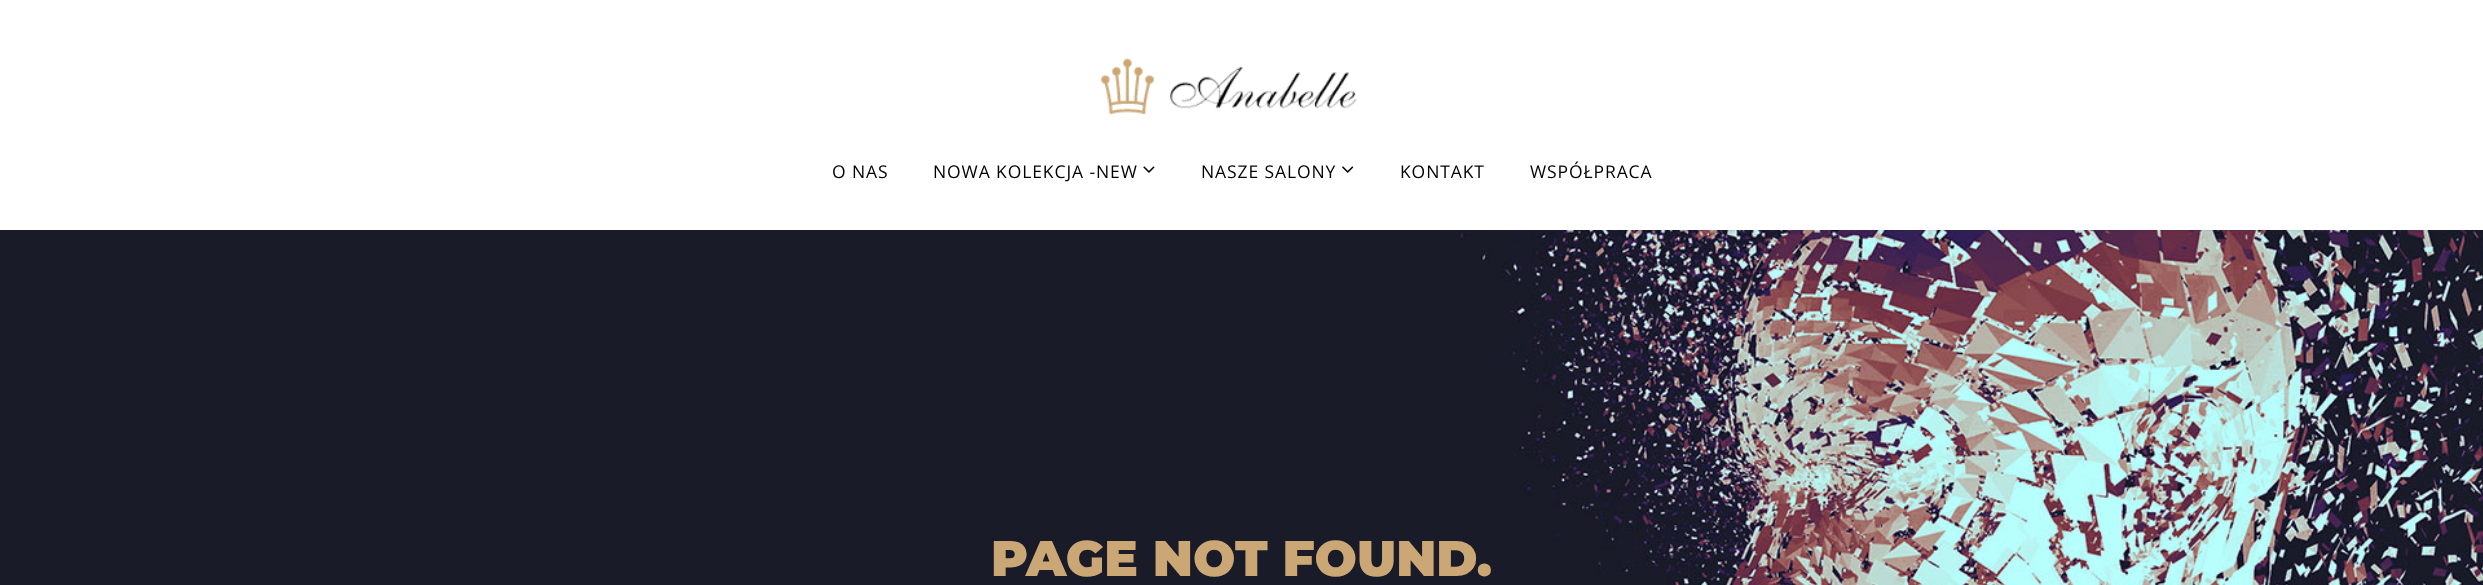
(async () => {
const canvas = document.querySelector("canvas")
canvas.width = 2483
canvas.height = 585
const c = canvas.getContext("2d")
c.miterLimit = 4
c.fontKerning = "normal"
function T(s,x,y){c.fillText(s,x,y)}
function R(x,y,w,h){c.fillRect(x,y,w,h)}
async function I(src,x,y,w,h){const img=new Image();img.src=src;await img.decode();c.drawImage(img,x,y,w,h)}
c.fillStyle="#fff"
R(0,0,2483,585)
await I("1.png",1101,58,257,57)
c.letterSpacing="0.9px"
c.font="17.5px Open Sans"
c.fillStyle="#000"
T("O NAS",832,178)
T("NOWA KOLEKCJA -NEW",933,178)
await I("2.png",1143,166,12,7)
T("NASZE SALONY",1201,178)
await I("3.png",1342,166,12,7)
T("KONTAKT",1400,178)
T("WSPÓŁPRACA",1530,178)
await I("4.png",0,230,2483,355)
c.letterSpacing="0px"
c.font="900 50px Montserrat"
c.fillStyle="#cca776"
T("PAGE NOT FOUND.",991,576)
})()
